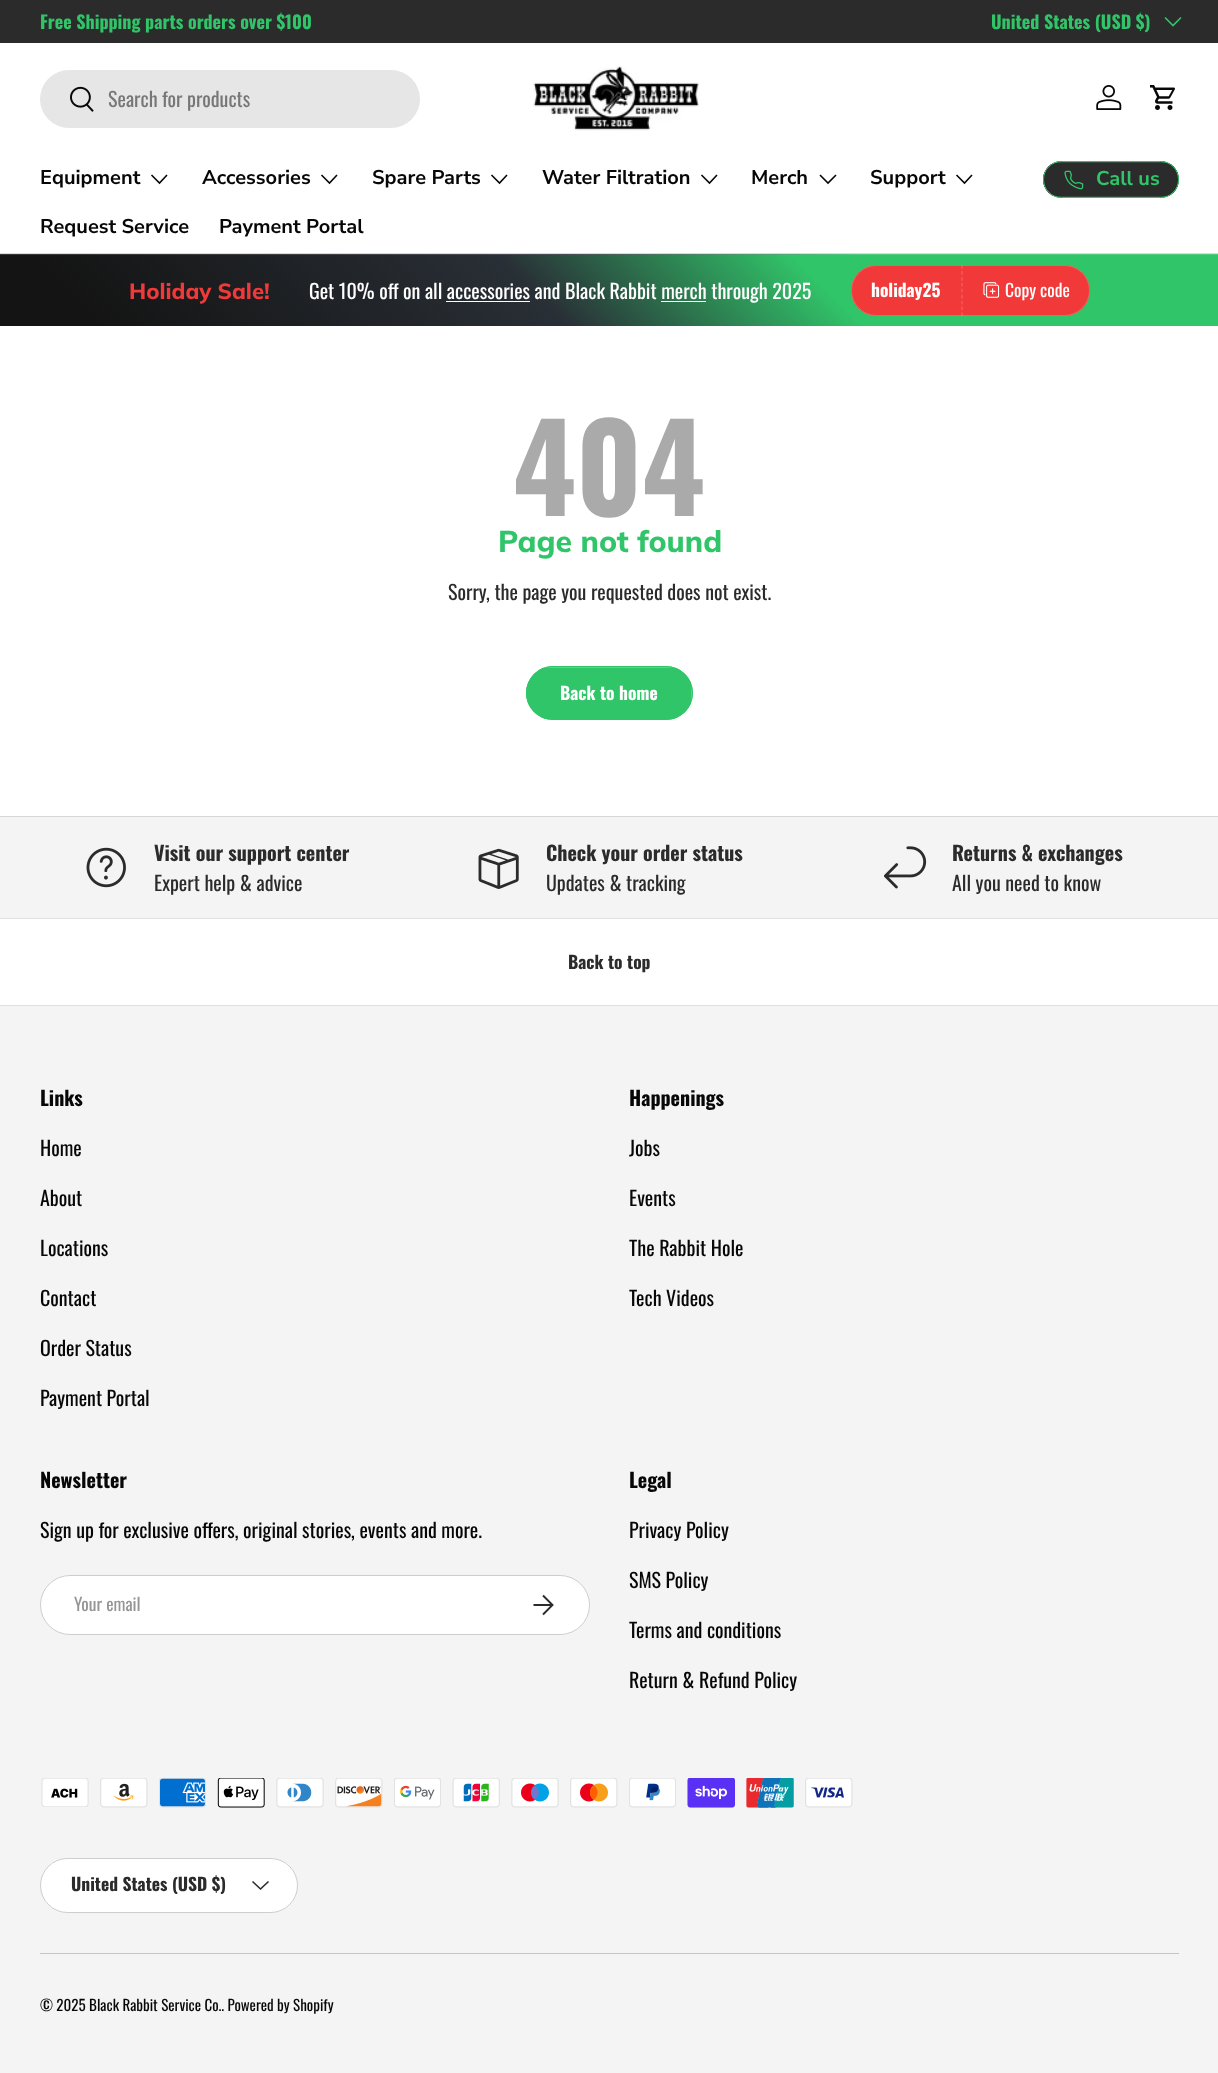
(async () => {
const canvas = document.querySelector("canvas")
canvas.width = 1218
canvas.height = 2073
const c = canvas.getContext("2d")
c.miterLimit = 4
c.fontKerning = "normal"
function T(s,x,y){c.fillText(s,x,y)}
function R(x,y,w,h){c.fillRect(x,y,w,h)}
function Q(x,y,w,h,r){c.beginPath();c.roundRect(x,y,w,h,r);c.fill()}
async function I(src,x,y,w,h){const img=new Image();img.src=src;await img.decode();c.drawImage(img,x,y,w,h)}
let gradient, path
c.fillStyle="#fff"
R(0,0,1218,2073)
c.fillStyle="#2a2b2a"
R(0,0,1218,43)
c.font="bold 18px Oswald"
c.fillStyle="#31c569"
T("Free Shipping parts orders over $100",40,29)
T("United States (USD $)",991,29)
path = new Path2D("M1181 17.5l-8 8l-8-8")
c.strokeStyle="#31c569"
c.lineWidth=1.6
c.stroke(path)
c.fillStyle="#dadada"
R(0,253,1218,1)
c.fillStyle="#e6e6e6"
Q(40,70,380,58,29)
await I("1.png",70,86,24,26)
c.font="20px Oswald"
c.fillStyle="#777"
T("Search for products",108,107)
await I("2.png",533,66,167,65)
await I("3.png",1096,85,26,25)
await I("4.png",1150,85,25,25)
c.font="bold 20px Nunito Sans"
c.fillStyle="#070707"
T("Equipment",40,184)
path = new Path2D("M167 175l-7.5 8l-8-8")
c.strokeStyle="#070707"
c.stroke(path)
T("Accessories",202,184)
path = new Path2D("M337 175l-7.5 8l-8-8")
c.stroke(path)
T("Spare Parts",372,184)
path = new Path2D("M507 175l-7.5 8l-8-8")
c.stroke(path)
T("Water Filtration",542,184)
path = new Path2D("M717 175l-7.5 8l-8-8")
c.stroke(path)
T("Merch",751,184)
path = new Path2D("M836 175l-8 8l-8-8")
c.stroke(path)
T("Support",870,184)
path = new Path2D("M972 175l-7.5 8l-8-8")
c.stroke(path)
T("Request Service",40,233)
T("Payment Portal",219,233)
c.fillStyle="#314b3a"
Q(1043,161,136,37,18.5)
c.save()
c.beginPath()
c.roundRect(1043,161,136,37,18.5)
c.clip()
gradient = c.createLinearGradient(784,131,1170,227)
gradient.addColorStop(.6,"#314b3a")
gradient.addColorStop(.6,"#2a2b2a")
gradient.addColorStop(1,"#2a2b2a")
c.fillStyle = gradient
R(1043,163,135,33)
c.restore()
c.beginPath()
c.roundRect(1043.5,161.5,135,36,18)
c.strokeStyle="#31c569"
c.lineWidth=1
c.stroke()
await I("5.png",1064,170,20,20)
c.fillStyle="#31c569"
T("Call us",1096,185)
gradient = c.createLinearGradient(932,-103,287,542)
gradient.addColorStop(.33,"#50ce80")
gradient.addColorStop(.56,"#494e54")
gradient.addColorStop(.92,"#373737")
c.fillStyle = gradient
R(0,254,1218,1)
gradient = c.createLinearGradient(932,-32,287,613)
gradient.addColorStop(.33,"#31c569")
gradient.addColorStop(.56,"#292f36")
gradient.addColorStop(.92,"#141414")
c.fillStyle = gradient
R(0,255,1218,71)
c.font="800 22px Muli"
c.fillStyle="#f13939"
T("Holiday Sale!",129,299)
c.font="20px Oswald"
c.fillStyle="#fff"
T("Get 10% off on all accessories and Black Rabbit merch through 2025",309,299)
R(446,301,84,1)
R(661,301,45,1)
c.fillStyle="#f13939"
Q(851,265,239,51,25.5)
c.beginPath()
c.roundRect(851.5,265.5,238,50,25)
c.strokeStyle="#ffffff33"
c.stroke()
c.font="bold 17.5px Oswald"
c.fillStyle="#fff"
T("holiday25",871,297)
path = new Path2D("M962 265v51")
c.lineWidth=1.2
c.setLineDash([3.75,2.19])
c.stroke(path)
await I("6.png",983,282,17,16)
c.font="17.5px Oswald"
T("Copy code",1005,297)
c.font="bold 120px Oswald"
c.fillStyle="#aaa"
T("404",513,516)
c.font="800 30px Muli"
c.fillStyle="#31c569"
T("Page not found",498,552)
c.font="20px Oswald"
c.fillStyle="#2a2b2a"
T("Sorry, the page you requested does not exist.",448,600)
c.fillStyle="#5cd189"
Q(526,666,167,54,27)
c.save()
c.beginPath()
c.roundRect(526,666,167,54,27)
c.clip()
gradient = c.createLinearGradient(208,634,683,752)
gradient.addColorStop(.6,"#5cd189")
gradient.addColorStop(.6,"#31c569")
gradient.addColorStop(1,"#31c569")
c.fillStyle = gradient
R(526,668,165,51)
c.restore()
c.beginPath()
c.roundRect(526.5,666.5,166,53,26.5)
c.strokeStyle="#31c569"
c.lineWidth=1
c.setLineDash([])
c.stroke()
c.font="bold 17.5px Oswald"
c.fillStyle="#fff"
T("Back to home",560,700)
c.fillStyle="#f4f4f4"
R(0,817,1218,101)
c.fillStyle="#d6d6d6"
R(0,816,1218,1)
await I("7.png",86,847,40,41)
c.font="bold 20px Oswald"
c.fillStyle="#2a2b2a"
T("Visit our support center",154,861)
c.font="20px Oswald"
T("Expert help & advice",154,891)
await I("8.png",478,848,41,41)
c.font="bold 20px Oswald"
T("Check your order status",546,861)
c.font="20px Oswald"
T("Updates & tracking",546,891)
await I("9.png",884,846,43,43)
c.font="bold 20px Oswald"
T("Returns & exchanges",952,861)
c.font="20px Oswald"
T("All you need to know",952,891)
c.fillStyle="#dfdfdf"
R(0,918,1218,1)
R(0,1005,1218,1)
c.font="bold 17.5px Oswald"
c.fillStyle="#2a2b2a"
T("Back to top",568,969)
c.fillStyle="#f4f4f4"
R(0,1006,1218,1067)
c.font="bold 20px Oswald"
c.fillStyle="#070707"
T("Links",40,1106)
c.font="20px Oswald"
T("Home",40,1156)
T("About",40,1206)
T("Locations",40,1256)
T("Contact",40,1306)
T("Order Status",40,1356)
T("Payment Portal",40,1406)
c.font="bold 20px Oswald"
T("Happenings",629,1106)
c.font="20px Oswald"
T("Jobs",629,1156)
T("Events",629,1206)
T("The Rabbit Hole",629,1256)
T("Tech Videos",629,1306)
c.font="bold 20px Oswald"
T("Newsletter",40,1488)
c.font="20px Oswald"
T("Sign up for exclusive offers, original stories, events and more.",40,1538)
c.fillStyle="#fff"
Q(40,1575,550,60,30)
c.beginPath()
c.roundRect(40.5,1575.5,549,59,29.5)
c.strokeStyle="#07070733"
c.stroke()
c.font="17.5px Oswald"
c.fillStyle="#959595"
T("Your email",74,1611)
path = new Path2D("M533.5 1605h18m-8.5-9.5l9.5 9.5l-9.5 9.5")
c.strokeStyle="#2a2b2a"
c.lineWidth=1.9
c.stroke(path)
c.font="bold 20px Oswald"
c.fillStyle="#070707"
T("Legal",629,1488)
c.font="20px Oswald"
T("Privacy Policy",629,1538)
T("SMS Policy",629,1588)
T("Terms and conditions",629,1638)
T("Return & Refund Policy",629,1688)
await I("10.png",41,1778,48,29)
await I("11.png",100,1778,48,30)
await I("12.png",159,1778,47,30)
await I("13.png",217,1778,48,30)
await I("14.png",276,1778,48,30)
await I("15.png",335,1778,48,30)
await I("16.png",394,1778,47,30)
await I("17.png",452,1778,48,30)
await I("18.png",511,1778,48,30)
await I("19.png",570,1778,48,30)
await I("20.png",629,1778,47,30)
await I("21.png",687,1778,48,30)
await I("22.png",746,1778,48,30)
await I("23.png",805,1778,48,30)
c.fillStyle="#fff"
Q(40,1858,258,55,27.5)
c.beginPath()
c.roundRect(40.5,1858.5,257,54,27)
c.strokeStyle="#07070733"
c.lineWidth=1
c.stroke()
c.font="bold 17.5px Oswald"
c.fillStyle="#2a2b2a"
T("United States (USD $)",71,1891)
path = new Path2D("M268.5 1881.5l-8 7.5l-8-7.5")
c.strokeStyle="#2a2b2a"
c.lineWidth=1.6
c.stroke(path)
c.fillStyle="#c5c5c5"
R(40,1953,1139,1)
c.font="15px Oswald"
c.fillStyle="#070707"
T("© 2025 Black Rabbit Service Co.. Powered by Shopify",40,2011)
})()
